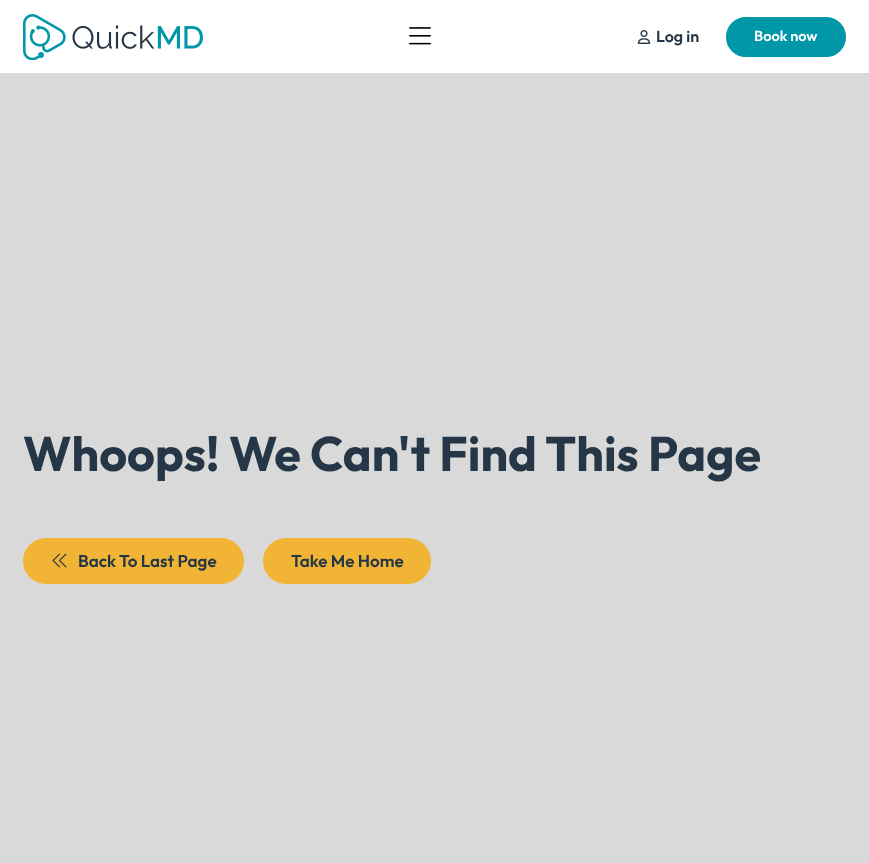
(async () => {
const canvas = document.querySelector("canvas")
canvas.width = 869
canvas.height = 863
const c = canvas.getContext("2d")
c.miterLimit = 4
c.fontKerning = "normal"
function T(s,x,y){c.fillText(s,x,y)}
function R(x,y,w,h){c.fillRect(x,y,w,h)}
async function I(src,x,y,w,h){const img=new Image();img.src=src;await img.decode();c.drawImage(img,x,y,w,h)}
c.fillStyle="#fff"
R(0,0,869,863)
await I("1.png",23,14,180,46)
await I("2.png",409,27,22,18)
await I("3.png",637,30,14,14)
c.font="600 16px Outfit"
c.fillStyle="#253746"
T("Log in",656,42)
c.fillStyle="#0097a9"
c.beginPath()
c.roundRect(727,18,118,38,19)
c.fill()
c.strokeStyle="#0097a9"
c.lineWidth=2
c.stroke()
c.font="600 14.5px Outfit"
c.fillStyle="#fff"
T("Book now",754,41)
c.fillStyle="#d9d9d9"
R(0,73,869,790)
c.font="bold 48.4px Outfit"
c.fillStyle="#253746"
T("Whoops! We Can't Find This Page",23,471)
c.fillStyle="#f1b434"
c.beginPath()
c.roundRect(24,539,219,44,22)
c.fill()
c.strokeStyle="#f1b434"
c.stroke()
await I("4.png",52,553,15,15)
c.font="600 17px Outfit"
c.fillStyle="#253746"
T("Back To Last Page",78,567)
c.fillStyle="#f1b434"
c.beginPath()
c.roundRect(264,539,166,44,22)
c.fill()
c.stroke()
c.fillStyle="#253746"
T("Take Me Home",291,567)
})()
